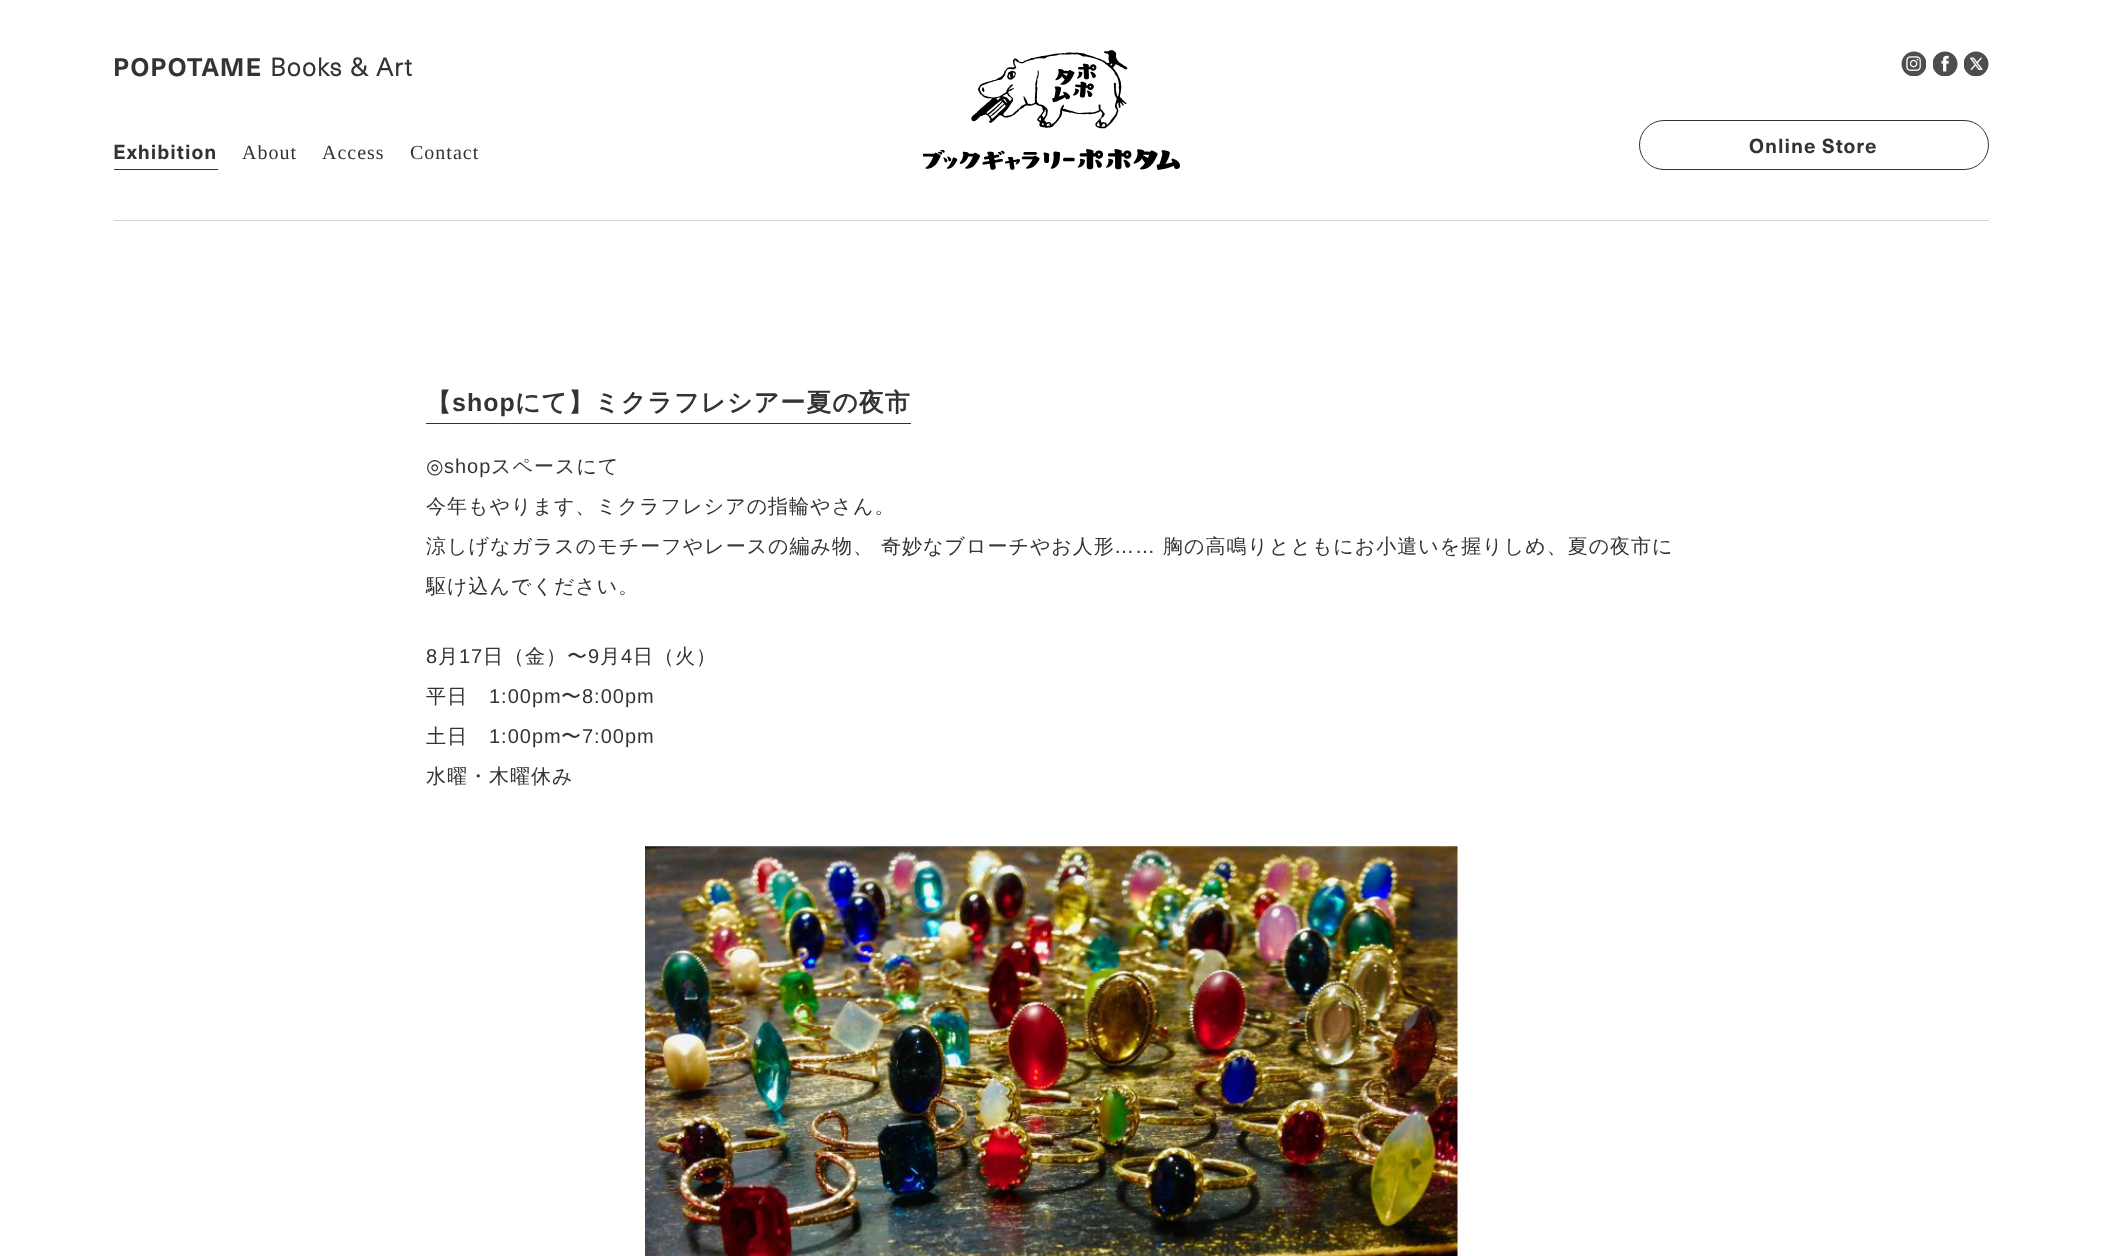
(async () => {
const canvas = document.querySelector("canvas")
canvas.width = 2101
canvas.height = 1256
const c = canvas.getContext("2d")
c.miterLimit = 4
c.fontKerning = "normal"
function T(s,x,y){c.fillText(s,x,y)}
function R(x,y,w,h){c.fillRect(x,y,w,h)}
async function I(src,x,y,w,h){const img=new Image();img.src=src;await img.decode();c.drawImage(img,x,y,w,h)}
c.fillStyle="#fff"
R(0,0,2101,1256)
c.fillStyle="#d3d3d3"
R(114,220,1875,1)
c.letterSpacing="1.25px"
c.font="bold 25px 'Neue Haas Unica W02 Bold'"
c.fillStyle="#333"
T("POPOTAME",113,76)
c.font="bold 25px 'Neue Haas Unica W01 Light'"
T("Books & Art",270,76)
R(114,169,104,1)
c.letterSpacing="1px"
c.font="bold 20px 'Neue Haas Unica W02 Bold'"
T("Exhibition",113,159)
c.font="20px Liberation Serif"
T("About",242,159)
T("Access",322,159)
T("Contact",410,159)
await I("1.png",923,50,257,120)
await I("2.png",1901,51,25,25)
await I("3.png",1933,51,25,25)
await I("4.png",1964,51,25,25)
c.beginPath()
c.roundRect(1639.5,120.5,349,49,24.5)
c.strokeStyle="#333"
c.stroke()
c.font="bold 20px 'Neue Haas Unica W02 Bold'"
T("Online Store",1749,153)
c.font="bold 25px WenQuanYi Zen Hei"
T("【",426,411)
c.font="bold 25px Liberation Sans"
T("shop",452,411)
R(426,423,485,1)
c.font="bold 25px WenQuanYi Zen Hei"
T("にて】ミクラフレシアー夏の夜市",515,411)
c.font="20px DejaVu Sans"
T("◎",426,473)
c.font="20px Liberation Sans"
T("shop",444,473)
c.font="500 20px WenQuanYi Zen Hei"
T("スペースにて",491,473)
T("今年もやります、ミクラフレシアの指輪やさん。",426,513)
T("涼しげなガラスのモチーフやレースの編み物、 奇妙なブローチやお人形",426,553)
c.font="20px Liberation Sans"
T("……",1114,553)
c.font="500 20px WenQuanYi Zen Hei"
T("胸の高鳴りとともにお小遣いを握りしめ、夏の夜市に",1163,553)
T("駆け込んでください。",426,593)
c.font="20px Liberation Sans"
T("8",426,663)
c.font="500 20px WenQuanYi Zen Hei"
T("月",438,663)
c.font="20px Liberation Sans"
T("17",459,663)
c.font="500 20px WenQuanYi Zen Hei"
T("日（金）〜",483,663)
c.font="20px Liberation Sans"
T("9",588,663)
c.font="500 20px WenQuanYi Zen Hei"
T("月",600,663)
c.font="20px Liberation Sans"
T("4",621,663)
c.font="500 20px WenQuanYi Zen Hei"
T("日（火）",633,663)
T("平日",426,703)
c.font="20px Liberation Sans"
T("1:00pm",489,703)
c.font="500 20px WenQuanYi Zen Hei"
T("〜",561,703)
c.font="20px Liberation Sans"
T("8:00pm",582,703)
c.font="500 20px WenQuanYi Zen Hei"
T("土日",426,743)
c.font="20px Liberation Sans"
T("1:00pm",489,743)
c.font="500 20px WenQuanYi Zen Hei"
T("〜",561,743)
c.font="20px Liberation Sans"
T("7:00pm",582,743)
c.font="500 20px WenQuanYi Zen Hei"
T("水曜・木曜休み",426,783)
await I("5.png",645,846,813,410)
})()
